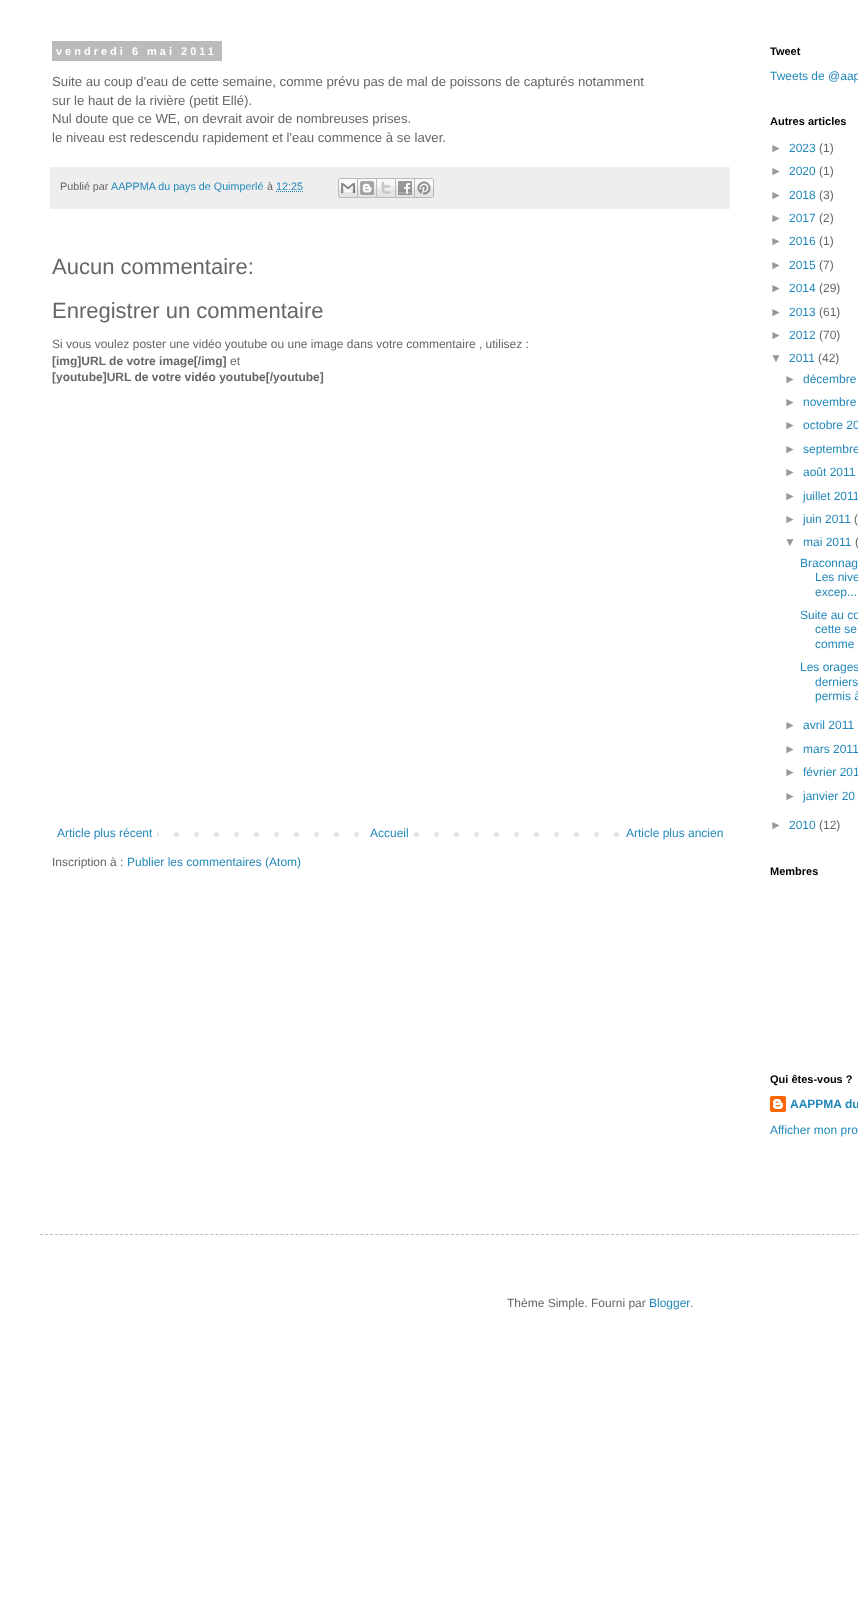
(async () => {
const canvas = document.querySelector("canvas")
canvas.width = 858
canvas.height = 1608
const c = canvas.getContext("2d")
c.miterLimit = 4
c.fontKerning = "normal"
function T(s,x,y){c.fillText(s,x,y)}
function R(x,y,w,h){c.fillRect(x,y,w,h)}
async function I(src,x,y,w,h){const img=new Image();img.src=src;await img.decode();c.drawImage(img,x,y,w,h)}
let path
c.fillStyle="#fff"
R(0,0,858,1608)
c.fillStyle="#bbb"
R(52,41,170,20)
c.letterSpacing="3px"
c.font="bold 11px Liberation Sans"
c.fillStyle="#fff"
T("vendredi 6 mai 2011",56,55)
c.letterSpacing="0px"
c.font="13.2px Liberation Sans"
c.fillStyle="#666"
T("Suite au coup d'eau de cette semaine, comme prévu pas de mal de poissons de capturés notamment",52,86)
T("sur le haut de la rivière (petit Ellé).",52,105)
T("Nul doute que ce WE, on devrait avoir de nombreuses prises.",52,123)
T("le niveau est redescendu rapidement et l'eau commence à se laver.",52,142)
c.fillStyle="#eee"
R(50,167,680,42)
c.font="10.75px Liberation Sans"
c.fillStyle="#666"
T("Publié par",60,190)
c.fillStyle="#28b"
T("AAPPMA du pays de Quimperlé",111,190)
c.fillStyle="#666"
T("à",267,190)
c.fillStyle="#28b"
T("12:25",276,190)
path = new Path2D("M276 191.5h27")
c.strokeStyle="#28b"
c.setLineDash([1,1])
c.stroke(path)
await I("1.png",338,178,20,20)
await I("2.png",358,178,19,20)
await I("3.png",377,178,19,20)
await I("4.png",396,178,19,20)
await I("5.png",415,178,19,20)
c.font="22px Liberation Sans"
c.fillStyle="#666"
T("Aucun commentaire:",52,274)
T("Enregistrer un commentaire",52,318)
c.font="12px Liberation Sans"
T("Si vous voulez poster une vidéo youtube ou une image dans votre commentaire , utilisez :",52,348)
c.font="bold 12px Liberation Sans"
T("[img]URL de votre image[/img]",52,365)
c.font="12px Liberation Sans"
T("et",230,365)
c.font="bold 12px Liberation Sans"
T("[youtube]URL de votre vidéo youtube[/youtube]",52,381)
await I("6.png",157,832,462,5)
c.font="12px Liberation Sans"
c.fillStyle="#28b"
T("Article plus récent",57,837)
c.fillStyle="#fff"
R(374,832,26,5)
c.fillStyle="#28b"
T("Accueil",370,837)
T("Article plus ancien",626,837)
c.fillStyle="#666"
T("Inscription à :",52,866)
c.fillStyle="#28b"
T("Publier les commentaires (Atom)",127,866)
c.font="bold 11px Liberation Sans"
c.fillStyle="#000"
T("Tweet",770,55)
c.font="12px Liberation Sans"
c.fillStyle="#28b"
T("Tweets de @aap",770,80)
c.font="bold 11px Liberation Sans"
c.fillStyle="#000"
T("Autres articles",770,125)
c.font="12px Liberation Sans"
c.fillStyle="#999"
T("►",770,152)
c.fillStyle="#28b"
T("2023",789,152)
c.fillStyle="#666"
T("(1)",819,152)
c.fillStyle="#999"
T("►",770,175)
c.fillStyle="#28b"
T("2020",789,175)
c.fillStyle="#666"
T("(1)",819,175)
c.fillStyle="#999"
T("►",770,199)
c.fillStyle="#28b"
T("2018",789,199)
c.fillStyle="#666"
T("(3)",819,199)
c.fillStyle="#999"
T("►",770,222)
c.fillStyle="#28b"
T("2017",789,222)
c.fillStyle="#666"
T("(2)",819,222)
c.fillStyle="#999"
T("►",770,245)
c.fillStyle="#28b"
T("2016",789,245)
c.fillStyle="#666"
T("(1)",819,245)
c.fillStyle="#999"
T("►",770,269)
c.fillStyle="#28b"
T("2015",789,269)
c.fillStyle="#666"
T("(7)",819,269)
c.fillStyle="#999"
T("►",770,292)
c.fillStyle="#28b"
T("2014",789,292)
c.fillStyle="#666"
T("(29)",819,292)
c.fillStyle="#999"
T("►",770,316)
c.fillStyle="#28b"
T("2013",789,316)
c.fillStyle="#666"
T("(61)",819,316)
c.fillStyle="#999"
T("►",770,339)
c.fillStyle="#28b"
T("2012",789,339)
c.fillStyle="#666"
T("(70)",819,339)
c.fillStyle="#999"
T("▼",770,362)
c.fillStyle="#28b"
T("2011",789,362)
c.fillStyle="#666"
T("(42)",818,362)
c.fillStyle="#999"
T("►",784,383)
c.fillStyle="#28b"
T("décembre",803,383)
c.fillStyle="#999"
T("►",784,406)
c.fillStyle="#28b"
T("novembre",803,406)
c.fillStyle="#999"
T("►",784,429)
c.fillStyle="#28b"
T("octobre 20",803,429)
c.fillStyle="#999"
T("►",784,453)
c.fillStyle="#28b"
T("septembre",803,453)
c.fillStyle="#999"
T("►",784,476)
c.fillStyle="#28b"
T("août 2011",803,476)
c.fillStyle="#999"
T("►",784,500)
c.fillStyle="#28b"
T("juillet 2011",803,500)
c.fillStyle="#999"
T("►",784,523)
c.fillStyle="#28b"
T("juin 2011",803,523)
c.fillStyle="#666"
T("(",854,523)
c.fillStyle="#999"
T("▼",784,546)
c.fillStyle="#28b"
T("mai 2011",803,546)
c.fillStyle="#666"
T("(",855,546)
c.fillStyle="#28b"
T("Braconnag",800,567)
T("Les nive",815,581)
T("excep...",815,596)
T("Suite au co",800,619)
T("cette se",815,633)
T("comme",815,648)
T("Les orages",800,671)
T("derniers",815,686)
T("permis à",815,700)
c.fillStyle="#999"
T("►",784,729)
c.fillStyle="#28b"
T("avril 2011",803,729)
c.fillStyle="#999"
T("►",784,753)
c.fillStyle="#28b"
T("mars 2011",803,753)
c.fillStyle="#999"
T("►",784,776)
c.fillStyle="#28b"
T("février 201",803,776)
c.fillStyle="#999"
T("►",784,800)
c.fillStyle="#28b"
T("janvier 20",803,800)
c.fillStyle="#999"
T("►",770,829)
c.fillStyle="#28b"
T("2010",789,829)
c.fillStyle="#666"
T("(12)",819,829)
c.font="bold 11px Liberation Sans"
c.fillStyle="#000"
T("Membres",770,875)
T("Qui êtes-vous ?",770,1083)
await I("7.png",770,1096,16,16)
c.font="bold 12px Liberation Sans"
c.fillStyle="#28b"
T("AAPPMA du",790,1108)
c.font="12px Liberation Sans"
T("Afficher mon pro",770,1134)
path = new Path2D("M40 1234.5h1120")
c.strokeStyle="#bbb"
c.setLineDash([3,2.01])
c.stroke(path)
c.fillStyle="#666"
T("Thème Simple. Fourni par",507,1307)
c.fillStyle="#28b"
T("Blogger",649,1307)
c.fillStyle="#666"
T(".",690,1307)
})()
